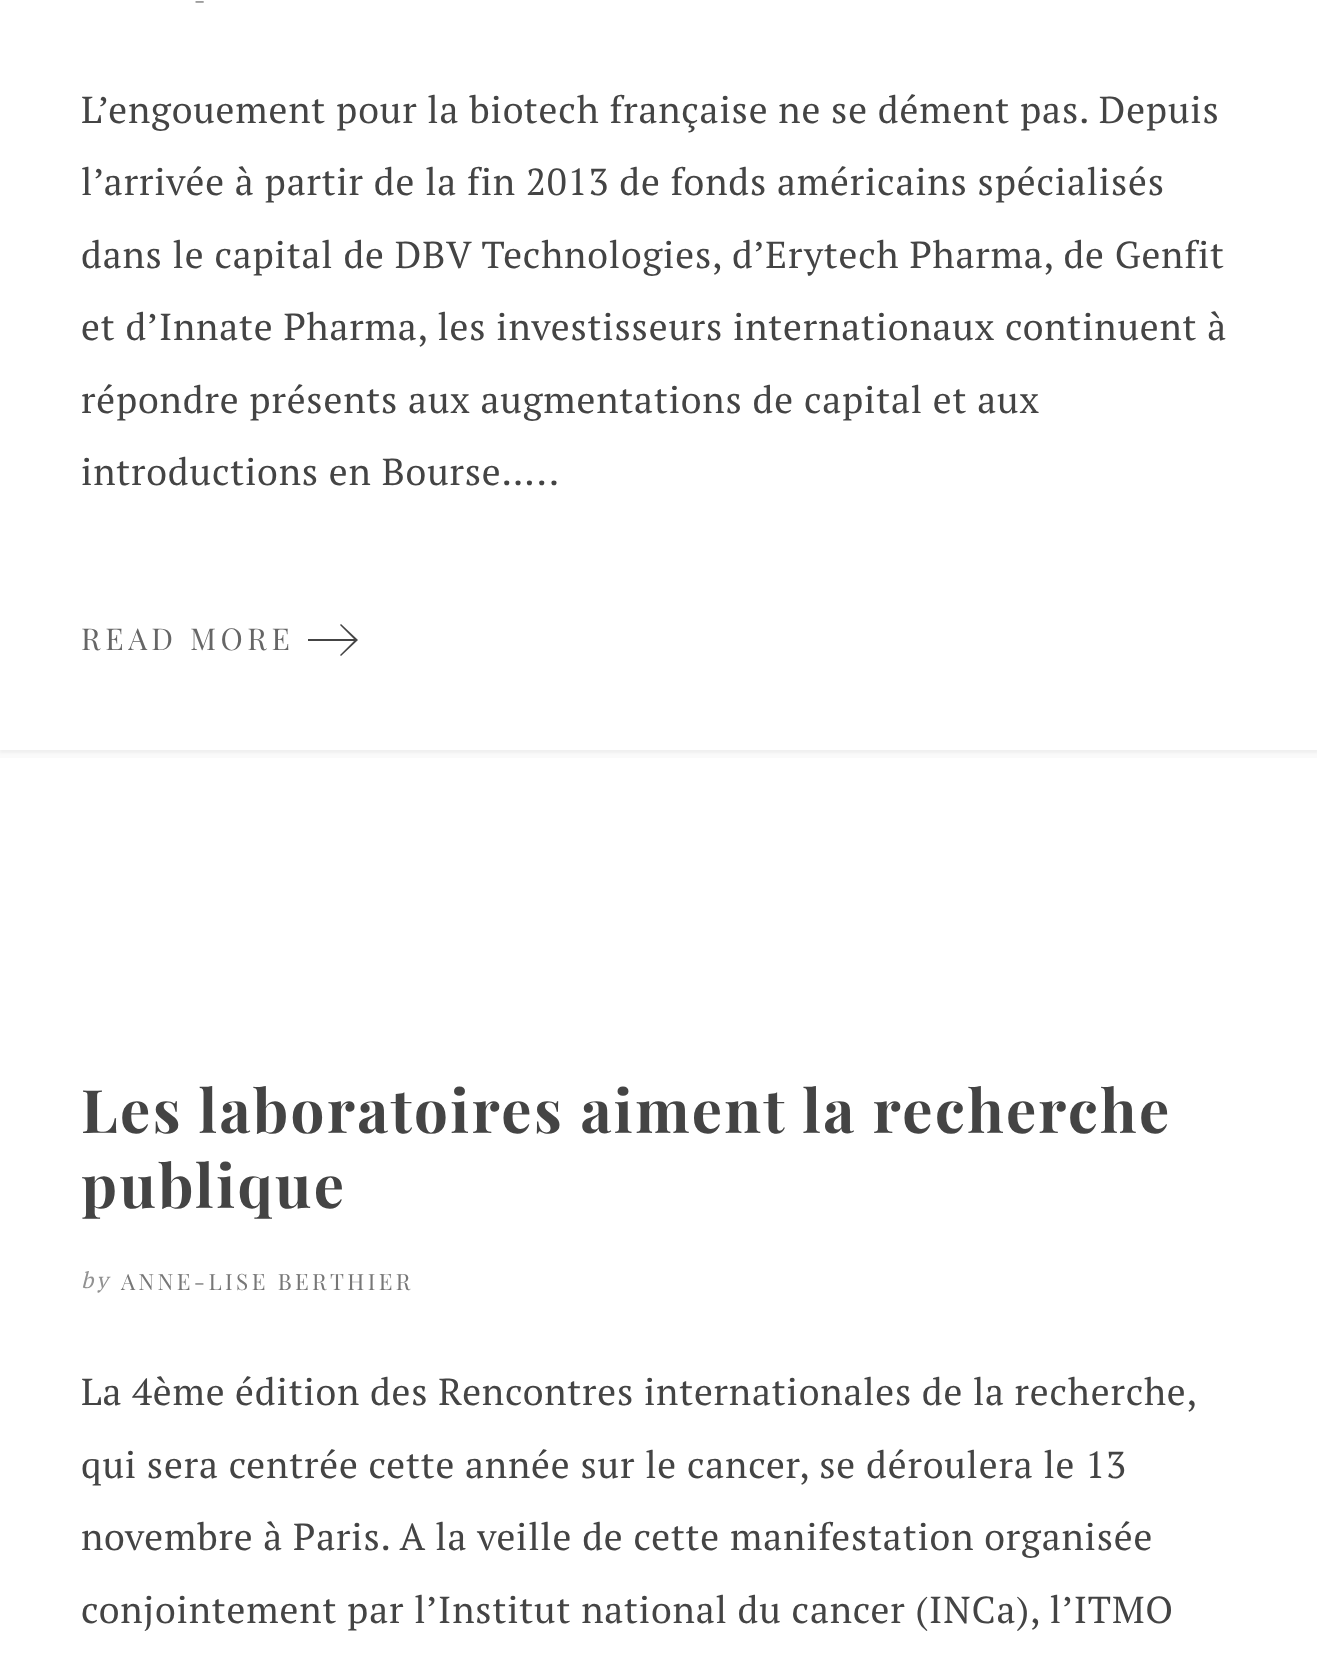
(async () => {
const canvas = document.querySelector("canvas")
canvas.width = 1317
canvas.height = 1659
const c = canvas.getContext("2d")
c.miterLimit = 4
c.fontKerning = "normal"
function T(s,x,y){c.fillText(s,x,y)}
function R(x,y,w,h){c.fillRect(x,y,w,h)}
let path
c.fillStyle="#fafafa"
R(0,0,1317,1659)
c.fillStyle="#0000000a"
c.filter="blur(1px)"
c.beginPath()
c.rect(0,-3,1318,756)
c.fill()
c.filter="none"
c.fillStyle="#fff"
R(0,0,1317,750)
c.letterSpacing="3.4px"
c.font="22.5px Playfair Display"
c.fillStyle="#777"
T("-",194,8)
c.letterSpacing="0.85px"
c.font="37.5px PT Serif"
c.fillStyle="#444"
T("L’engouement pour la biotech française ne se dément pas. Depuis",81,123)
T("l’arrivée à partir de la fin 2013 de fonds américains spécialisés",81,195)
T("dans le capital de DBV Technologies, d’Erytech Pharma, de Genfit",81,268)
T("et d’Innate Pharma, les investisseurs internationaux continuent à",81,340)
T("répondre présents aux augmentations de capital et aux",81,413)
T("introductions en Bourse…..",81,485)
c.letterSpacing="4.75px"
c.font="30px Playfair Display"
c.fillStyle="#666"
T("READ MORE",81,650)
c.fillStyle="#444"
path = new Path2D("M341 624l17 16l-17 16l-1-1l14-14h-46v-2h46l-14-14z")
c.fill(path)
c.fillStyle="#fff"
R(0,758,1317,901)
c.letterSpacing="2.4px"
c.font="bold 60px Playfair Display"
c.fillStyle="#444"
T("Les laboratoires aiment la recherche",81,1133)
T("publique",81,1208)
c.letterSpacing="3.4px"
c.font="italic 22.5px PT Serif"
c.fillStyle="#929292"
T("by",81,1288)
c.font="22.5px Playfair Display"
c.fillStyle="#777"
T("ANNE-LISE BERTHIER",121,1290)
c.letterSpacing="0.85px"
c.wordSpacing="-0.25px"
c.font="37.5px PT Serif"
c.fillStyle="#444"
T("La 4ème édition des Rencontres internationales de la recherche,",81,1405)
c.wordSpacing="0px"
T("qui sera centrée cette année sur le cancer, se déroulera le 13",81,1478)
T("novembre à Paris. A la veille de cette manifestation organisée",81,1550)
T("conjointement par l’Institut national du cancer (INCa), l’ITMO",81,1623)
})()
